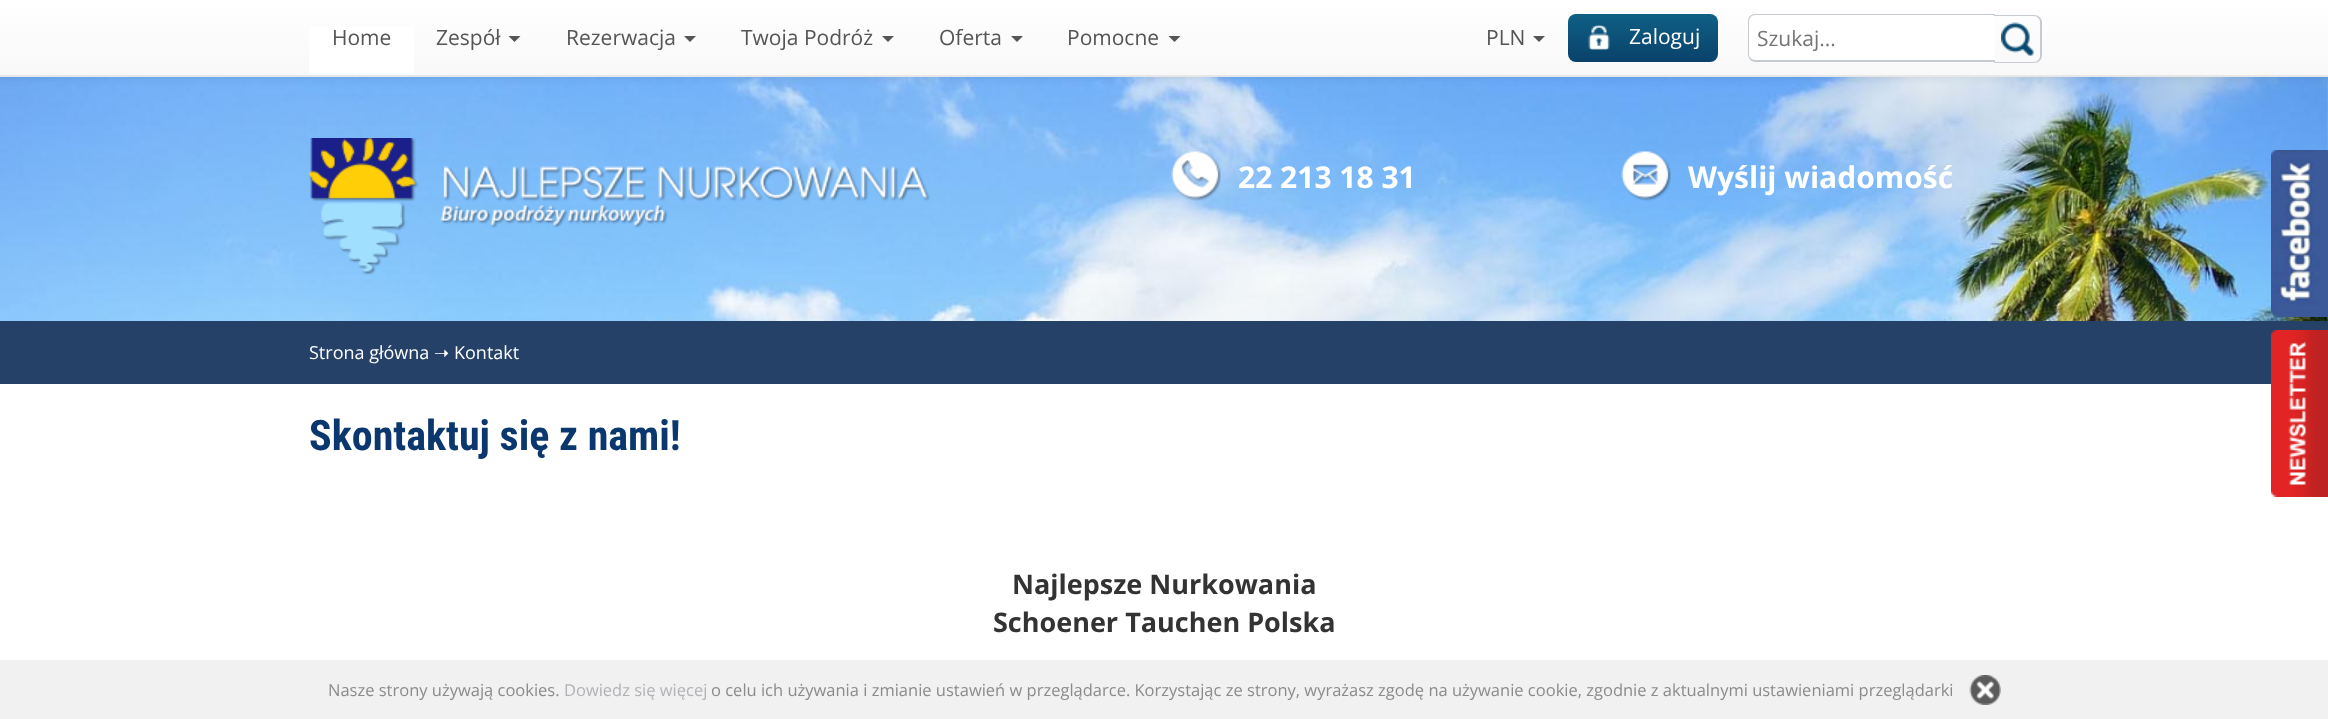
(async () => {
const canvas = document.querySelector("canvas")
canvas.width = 2328
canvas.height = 719
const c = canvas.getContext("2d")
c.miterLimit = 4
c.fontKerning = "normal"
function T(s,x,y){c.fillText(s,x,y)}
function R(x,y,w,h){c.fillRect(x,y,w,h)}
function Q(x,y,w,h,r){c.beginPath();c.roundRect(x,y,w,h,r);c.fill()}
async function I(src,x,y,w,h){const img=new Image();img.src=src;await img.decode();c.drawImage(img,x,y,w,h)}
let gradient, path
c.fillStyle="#fff"
R(0,0,2328,719)
await I("3.png",0,77,2328,244)
c.fillStyle="#00000012"
c.filter="blur(4px)"
c.beginPath()
c.rect(0,2,2328,76)
c.fill()
c.filter="none"
gradient = c.createLinearGradient(1164,0,1164,75)
gradient.addColorStop(0,"#fff")
gradient.addColorStop(1,"#f8f8f8")
c.fillStyle = gradient
R(0,0,2328,75)
c.fillStyle="#e7e7e7"
R(0,75,2328,2)
c.fillStyle="#fff"
R(309,27,105,48)
c.font="21px Open Sans"
c.fillStyle="#555"
T("Home",332,45)
T("Zespół",436,45)
path = new Path2D("M508.5 36h12l-6 6z")
c.fill(path)
T("Rezerwacja",566,45)
path = new Path2D("M684 36h12l-6 6z")
c.fill(path)
T("Twoja Podróż",741,45)
path = new Path2D("M882 36h12l-6 6z")
c.fill(path)
T("Oferta",939,45)
path = new Path2D("M1011 36h12l-6 6z")
c.fill(path)
T("Pomocne",1067,45)
path = new Path2D("M1168.5 36h12l-6 6z")
c.fill(path)
T("PLN",1486,45)
path = new Path2D("M1533 36h12l-6 6z")
c.fill(path)
gradient = c.createLinearGradient(1643,62,1643,14)
gradient.addColorStop(0,"#09426a")
gradient.addColorStop(1,"#0f5f85")
c.fillStyle = gradient
Q(1568,14,150,48,8)
await I("1.png",1588,25,22,25)
c.fillStyle="#fff"
T("Zaloguj",1629,44)
c.beginPath()
c.roundRect(1748,14,247,48,[8,0,0,8])
c.fill()
c.fillStyle="#c6cbd1"
path = new Path2D("M1755 14h240v48h-240c-4 0-7-4-7-8v-33c0-4 3-7 7-7zm0 1h240v45h-240c-3 0-6-3-6-6v-33c0-3 3-6 6-6z")
c.fill(path,"evenodd")
c.fillStyle="#757575"
T("Szukaj...",1757,46)
await I("2.png",2001,22,33,34)
c.fillStyle="#c6cbd1"
path = new Path2D("M1994 15h40c4 0 8 3 8 7v34c0 4-4 7-8 7h-40zm0 1h40c3 0 6 3 6 6v34c0 3-3 6-6 6h-40z")
c.fill(path,"evenodd")
await I("4.png",309,138,621,137)
await I("5.png",1171,151,50,50)
c.font="bold 30px Open Sans"
c.fillStyle="#fff"
T("22 213 18 31",1238,188)
await I("6.png",1621,151,50,50)
T("Wyślij wiadomość",1688,188)
c.fillStyle="#264167"
R(0,321,2328,63)
c.font="18px Open Sans"
c.fillStyle="#fff"
T("Strona główna",309,359)
c.font="18px DejaVu Sans"
T("➝",434,359)
c.font="18px Open Sans"
T("Kontakt",454,359)
c.font="bold 42px Roboto Condensed"
c.fillStyle="#0a376e"
T("Skontaktuj się z nami!",309,450)
c.font="bold 27px Open Sans"
c.fillStyle="#333"
T("Najlepsze Nurkowania",1012,594)
T("Schoener Tauchen Polska",993,632)
await I("7.png",2271,150,57,167)
await I("8.png",2271,330,57,167)
c.fillStyle="#f1f1f1"
R(0,660,2328,59)
c.font="16.5px Open Sans"
c.fillStyle="#8b8b8b"
T("Nasze strony używają cookies.",328,696)
c.fillStyle="#b2b2b6"
T("Dowiedz się więcej",564,696)
c.fillStyle="#8b8b8b"
T("o celu ich używania i zmianie ustawień w przeglądarce. Korzystając ze strony, wyrażasz zgodę na używanie cookie, zgodnie z aktualnymi ustawieniami przeglądarki",711,696)
await I("9.png",1969,675,32,30)
})()
